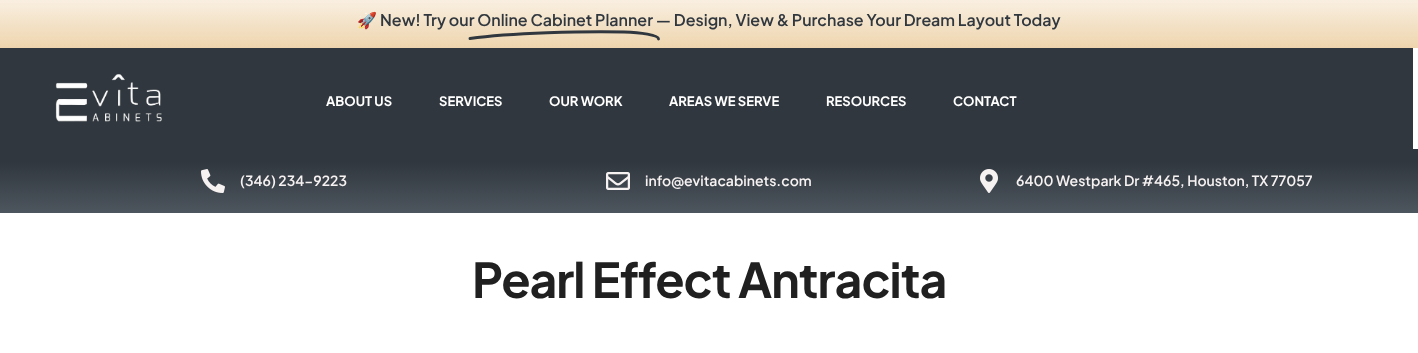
(async () => {
const canvas = document.querySelector("canvas")
canvas.width = 1418
canvas.height = 353
const c = canvas.getContext("2d")
c.miterLimit = 4
c.fontKerning = "normal"
function T(s,x,y){c.fillText(s,x,y)}
function R(x,y,w,h){c.fillRect(x,y,w,h)}
async function I(src,x,y,w,h){const img=new Image();img.src=src;await img.decode();c.drawImage(img,x,y,w,h)}
let gradient, path
c.fillStyle="#fff"
R(0,0,1418,353)
gradient = c.createLinearGradient(709,0,709,48)
gradient.addColorStop(0,"#f9efe1")
gradient.addColorStop(1,"#eed5ae")
c.fillStyle = gradient
R(0,0,1418,48)
c.font="bold 16px Noto Color Emoji"
c.fillStyle="#30373e"
T("🚀",357,26)
c.font="600 16px Plus Jakarta Sans"
T("New! Try our Online Cabinet Planner — Design, View & Purchase Your Dream Layout Today",380,26)
path = new Path2D("M470 38.5c40-5.5 114.5-7.5 154-6.5c16.5 .5 34.5 3 34.5 7")
c.strokeStyle="#30373e"
c.lineWidth=2.9
c.lineCap="round"
c.lineJoin="round"
c.stroke(path)
R(0,48,1413,101)
await I("1.png",55,74,107,48)
c.font="bold 13px Plus Jakarta Sans"
c.fillStyle="#fff"
T("ABOUT US",326,106)
T("SERVICES",439,106)
T("OUR WORK",549,106)
T("AREAS WE SERVE",669,106)
T("RESOURCES",826,106)
T("CONTACT",953,106)
gradient = c.createLinearGradient(709,149,709,213)
gradient.addColorStop(.2,"#30373e")
gradient.addColorStop(1,"#4d555e")
c.fillStyle = gradient
R(0,149,1418,64)
await I("2.png",201,169,24,24)
c.font="600 14px Plus Jakarta Sans"
c.fillStyle="#f7f2f2"
T("(346) 234-9223",240,186)
await I("3.png",606,172,24,18)
T("info@evitacabinets.com",645,186)
await I("4.png",980,169,18,24)
T("6400 Westpark Dr #465, Houston, TX 77057",1016,186)
c.letterSpacing="-1px"
c.font="bold 48px Plus Jakarta Sans"
c.fillStyle="#202020"
T("Pearl Effect Antracita",472,298)
})()
